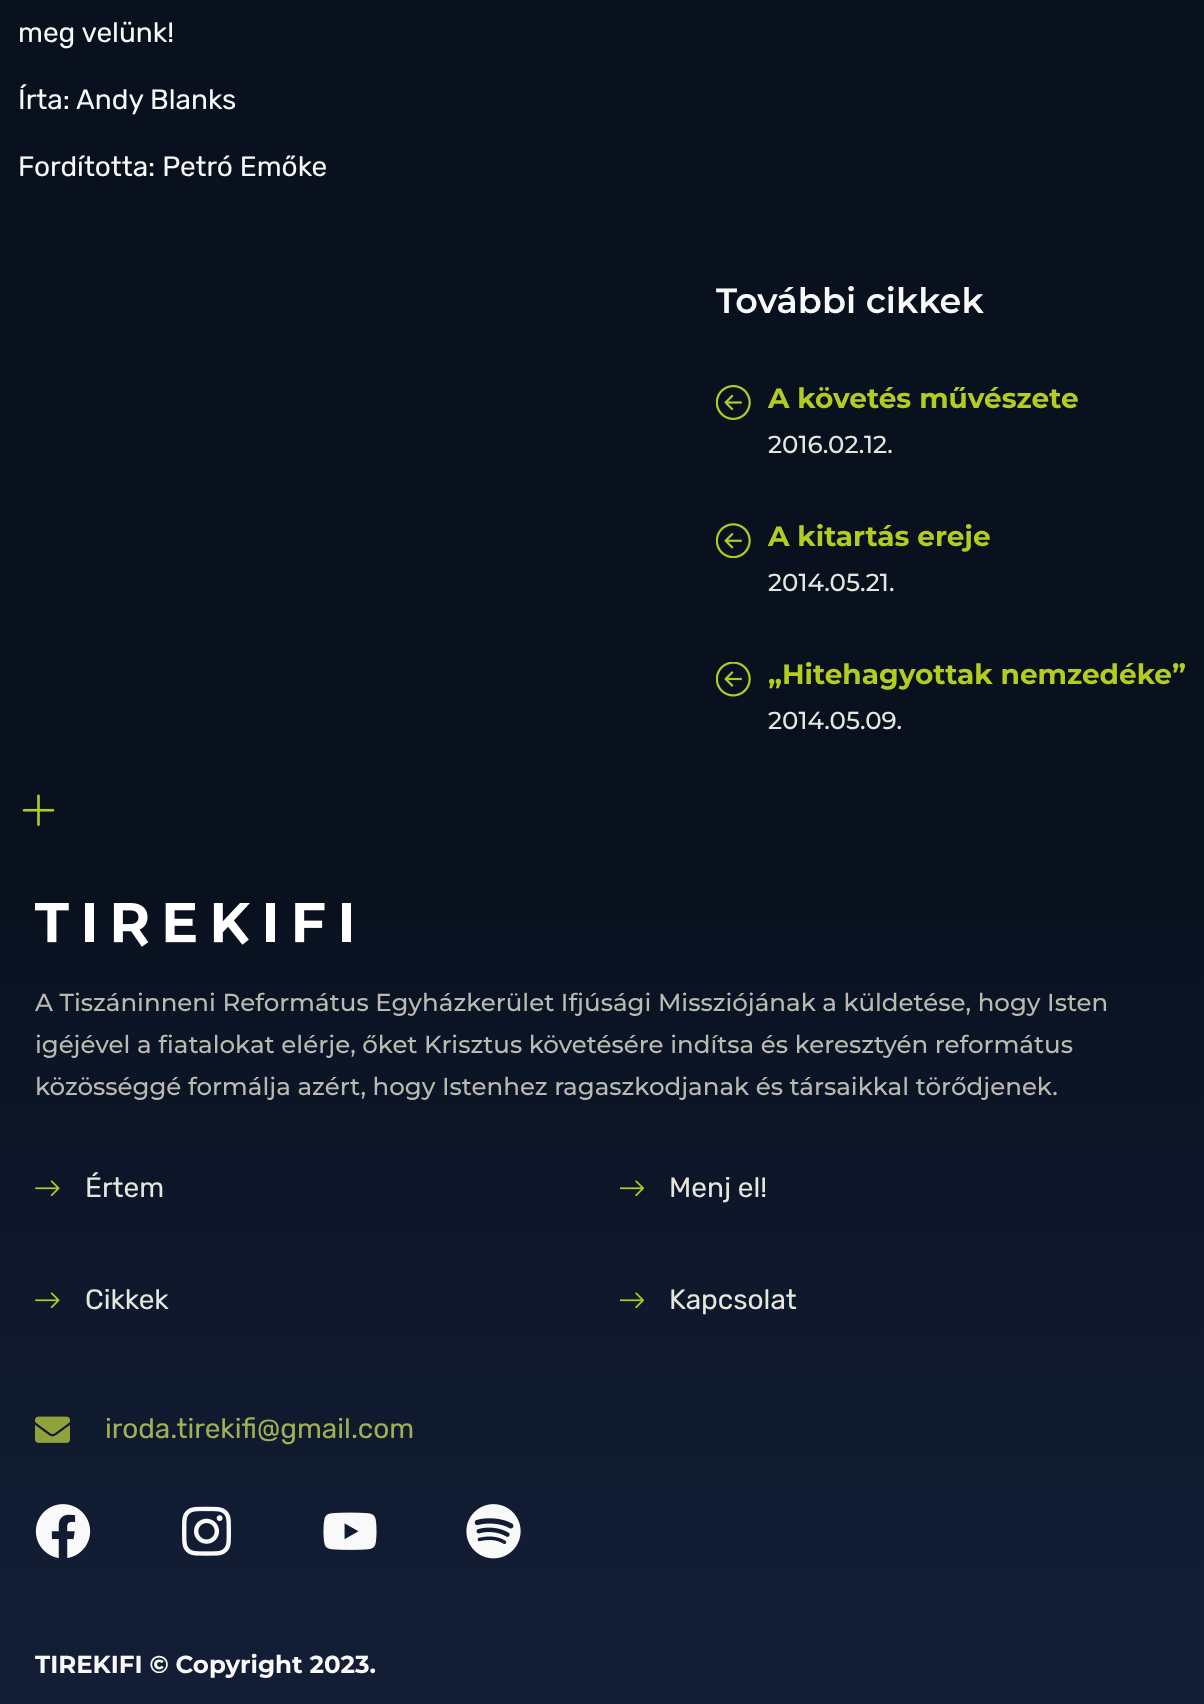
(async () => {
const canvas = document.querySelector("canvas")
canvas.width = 1204
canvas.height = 1704
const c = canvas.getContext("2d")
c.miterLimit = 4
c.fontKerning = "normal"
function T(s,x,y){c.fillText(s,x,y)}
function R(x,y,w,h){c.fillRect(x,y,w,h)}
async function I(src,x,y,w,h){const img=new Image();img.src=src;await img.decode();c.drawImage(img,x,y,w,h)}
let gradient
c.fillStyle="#09111f"
R(0,0,1204,1704)
c.font="28px Rubik"
c.fillStyle="#f9f9f9"
T("meg velünk!",18,42)
T("Írta: Andy Blanks",18,109)
T("Fordította: Petró Emőke",18,176)
c.font="600 35px Montserrat"
T("További cikkek",716,313)
await I("1.png",716,385,35,35)
c.font="bold 28px Montserrat"
c.fillStyle="#b2cc22"
T("A követés művészete",768,408)
c.font="500 24.5px Montserrat"
c.fillStyle="#e5e7dd"
T("2016.02.12.",768,453)
await I("2.png",716,523,35,35)
c.font="bold 28px Montserrat"
c.fillStyle="#b2cc22"
T("A kitartás ereje",768,546)
c.font="500 24.5px Montserrat"
c.fillStyle="#e5e7dd"
T("2014.05.21.",768,591)
await I("3.png",716,662,35,35)
c.font="bold 28px Montserrat"
c.fillStyle="#b2cc22"
T("„Hitehagyottak nemzedéke”",768,684)
c.font="500 24.5px Montserrat"
c.fillStyle="#e5e7dd"
T("2014.05.09.",768,729)
await I("4.png",22,794,33,32)
gradient = c.createLinearGradient(602,831,602,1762)
gradient.addColorStop(0,"#09111f")
gradient.addColorStop(1,"#141f38")
c.fillStyle = gradient
R(0,924,1204,780)
await I("5.png",35,903,316,44)
c.fillStyle="#b9bab0"
T("A Tiszáninneni Református Egyházkerület Ifjúsági Missziójának a küldetése, hogy Isten",35,1011)
T("igéjével a fiatalokat elérje, őket Krisztus követésére indítsa és keresztyén református",35,1053)
T("közösséggé formálja azért, hogy Istenhez ragaszkodjanak és társaikkal törődjenek.",35,1095)
await I("6.png",35,1180,25,17)
c.font="28px Rubik"
c.fillStyle="#e5e7dd"
T("Értem",85,1197)
await I("7.png",35,1292,25,17)
T("Cikkek",85,1309)
await I("8.png",620,1180,24,17)
T("Menj el!",669,1197)
await I("9.png",620,1292,24,17)
T("Kapcsolat",669,1309)
await I("10.png",35,1416,35,27)
c.fillStyle="#a1af55"
T("iroda.tirekifi@gmail.com",105,1438)
await I("11.png",35,1504,56,54)
await I("12.png",182,1506,49,50)
await I("13.png",323,1512,54,38)
await I("14.png",466,1504,55,55)
c.font="bold 24.5px Montserrat"
c.fillStyle="#f9f9f9"
T("TIREKIFI © Copyright 2023.",35,1673)
})()
